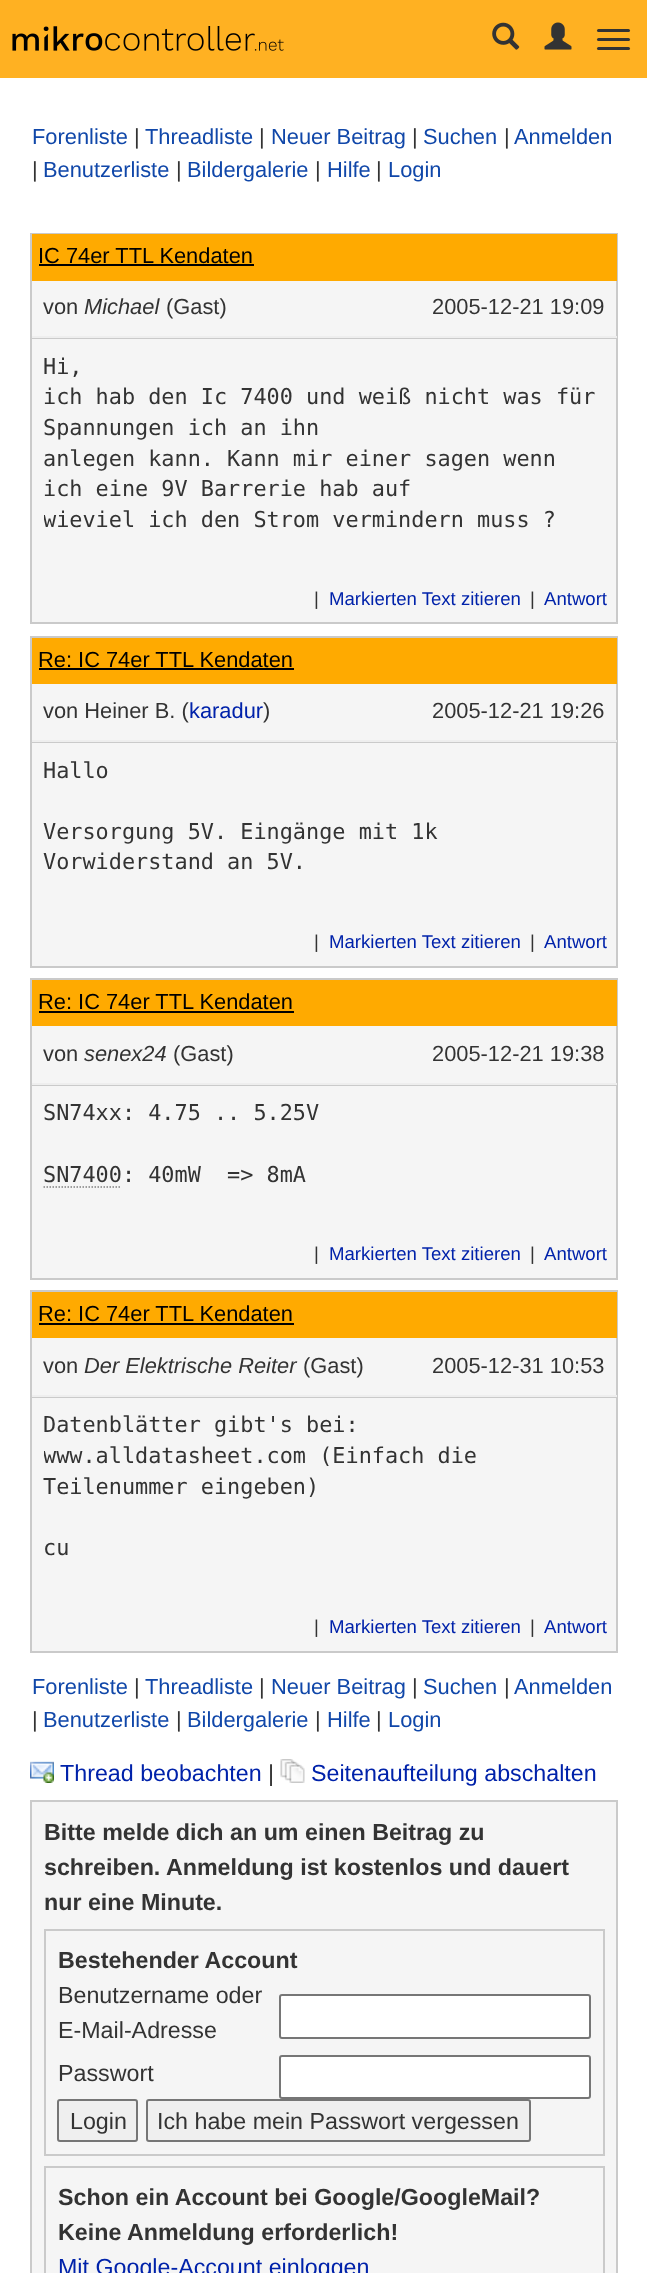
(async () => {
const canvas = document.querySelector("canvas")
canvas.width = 647
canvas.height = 2273
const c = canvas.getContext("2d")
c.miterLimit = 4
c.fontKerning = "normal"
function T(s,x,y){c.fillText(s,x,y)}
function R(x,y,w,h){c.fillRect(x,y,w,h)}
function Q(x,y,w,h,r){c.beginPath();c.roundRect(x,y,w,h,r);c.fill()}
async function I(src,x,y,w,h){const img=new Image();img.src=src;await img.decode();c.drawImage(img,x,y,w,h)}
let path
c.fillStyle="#fff"
R(0,0,647,2273)
c.fillStyle="#ffb122"
R(0,0,647,78)
await I("1.png",12,26,272,25)
await I("2.png",492,22,28,28)
await I("3.png",544,22,28,28)
c.fillStyle="#333"
Q(597,29,33,3,1.5)
Q(597,38,33,3,1.5)
Q(597,47,33,3,1.5)
c.font="21.85px Liberation Sans"
c.fillStyle="#1047a9"
T("Forenliste",32,144)
c.fillStyle="#333"
T("|",134,144)
c.fillStyle="#1047a9"
T("Threadliste",145,144)
c.fillStyle="#333"
T("|",259,144)
c.fillStyle="#1047a9"
T("Neuer Beitrag",271,144)
c.fillStyle="#333"
T("|",412,144)
c.fillStyle="#1047a9"
T("Suchen",423,144)
c.fillStyle="#333"
T("|",504,144)
c.fillStyle="#1047a9"
T("Anmelden",514,144)
c.fillStyle="#333"
T("|",32,177)
c.fillStyle="#1047a9"
T("Benutzerliste",43,177)
c.fillStyle="#333"
T("|",176,177)
c.fillStyle="#1047a9"
T("Bildergalerie",187,177)
c.fillStyle="#333"
T("|",315,177)
c.fillStyle="#1047a9"
T("Hilfe",327,177)
c.fillStyle="#333"
T("|",376,177)
c.fillStyle="#1047a9"
T("Login",388,177)
c.fillStyle="#f5f5f5"
R(32,281,584,341)
c.strokeStyle="#cacaca"
c.lineWidth=2
c.strokeRect(31,234,586,389)
c.fillStyle="#fa0"
R(32,234,585,47)
c.fillStyle="#000"
T("IC 74er TTL Kendaten",38,263)
R(39,264,215,2)
c.fillStyle="#333"
T("von",43,314)
c.font="italic 21.85px Liberation Sans"
T("Michael",84,314)
c.font="21.85px Liberation Sans"
T("(Gast)",166,314)
T("2005-12-21 19:09",432,314)
c.fillStyle="#cacaca"
R(32,338,585,1)
c.fillStyle="#eee"
R(32,336,585,2)
c.font="21.85px DejaVu Sans Mono"
c.fillStyle="#333"
T("Hi,",43,374)
T("ich hab den Ic 7400 und weiß nicht was für",43,404)
T("Spannungen ich an ihn",43,435)
T("anlegen kann. Kann mir einer sagen wenn",43,466)
T("ich eine 9V Barrerie hab auf",43,496)
c.save()
c.beginPath()
c.rect(44,351,561,185)
c.clip()
T("wieviel ich den Strom vermindern muss ?",43,527)
c.restore()
c.font="18.6px Liberation Sans"
T("|",314,605)
c.fillStyle="#02a"
T("Markierten Text zitieren",329,605)
c.fillStyle="#333"
T("|",530,605)
c.fillStyle="#02a"
T("Antwort",544,605)
c.fillStyle="#f5f5f5"
R(32,684,584,282)
c.strokeRect(31,637,586,330)
c.fillStyle="#fa0"
R(32,638,585,46)
c.font="21.85px Liberation Sans"
c.fillStyle="#000"
T("Re: IC 74er TTL Kendaten",38,667)
R(39,668,255,2)
c.fillStyle="#333"
T("von Heiner B. (",43,718)
c.fillStyle="#02a"
T("karadur",189,718)
c.fillStyle="#333"
T(")",263,718)
T("2005-12-21 19:26",432,718)
c.fillStyle="#cacaca"
R(32,742,585,1)
c.fillStyle="#eee"
R(32,740,585,2)
c.font="21.85px DejaVu Sans Mono"
c.fillStyle="#333"
T("Hallo",43,778)
T("Versorgung 5V. Eingänge mit 1k",43,839)
T("Vorwiderstand an 5V.",43,869)
c.font="18.6px Liberation Sans"
T("|",314,948)
c.fillStyle="#02a"
T("Markierten Text zitieren",329,948)
c.fillStyle="#333"
T("|",530,948)
c.fillStyle="#02a"
T("Antwort",544,948)
c.fillStyle="#f5f5f5"
R(32,1026,584,252)
c.strokeRect(31,979,586,300)
c.fillStyle="#fa0"
R(32,980,585,46)
c.font="21.85px Liberation Sans"
c.fillStyle="#000"
T("Re: IC 74er TTL Kendaten",38,1009)
R(39,1011,255,2)
c.fillStyle="#333"
T("von",43,1061)
c.font="italic 21.85px Liberation Sans"
T("senex24",84,1061)
c.font="21.85px Liberation Sans"
T("(Gast)",173,1061)
T("2005-12-21 19:38",432,1061)
c.fillStyle="#cacaca"
R(32,1085,585,1)
c.fillStyle="#eee"
R(32,1083,585,2)
c.font="21.85px DejaVu Sans Mono"
c.fillStyle="#333"
T("SN74xx: 4.75 .. 5.25V",43,1120)
T("SN7400: 40mW  => 8mA",43,1182)
path = new Path2D("M43.5 1187h78")
c.strokeStyle="#808080"
c.lineWidth=1.5
c.setLineDash([1.5,1.5])
c.stroke(path)
c.font="18.6px Liberation Sans"
T("|",314,1260)
c.fillStyle="#02a"
T("Markierten Text zitieren",329,1260)
c.fillStyle="#333"
T("|",530,1260)
c.fillStyle="#02a"
T("Antwort",544,1260)
c.fillStyle="#f5f5f5"
R(32,1338,584,313)
c.strokeStyle="#cacaca"
c.lineWidth=2
c.setLineDash([])
c.strokeRect(31,1291,586,361)
c.fillStyle="#fa0"
R(32,1292,585,46)
c.font="21.85px Liberation Sans"
c.fillStyle="#000"
T("Re: IC 74er TTL Kendaten",38,1321)
R(39,1323,255,2)
c.fillStyle="#333"
T("von",43,1373)
c.font="italic 21.85px Liberation Sans"
T("Der Elektrische Reiter",84,1373)
c.font="21.85px Liberation Sans"
T("(Gast)",303,1373)
T("2005-12-31 10:53",432,1373)
c.fillStyle="#cacaca"
R(32,1397,585,1)
c.fillStyle="#eee"
R(32,1395,585,2)
c.font="21.85px DejaVu Sans Mono"
c.fillStyle="#333"
T("Datenblätter gibt's bei:",43,1432)
c.save()
c.beginPath()
c.rect(44,1410,561,153)
c.clip()
T("www.alldatasheet.com (Einfach die",43,1463)
c.restore()
T("Teilenummer eingeben)",43,1494)
T("cu",43,1555)
c.font="18.6px Liberation Sans"
T("|",314,1633)
c.fillStyle="#02a"
T("Markierten Text zitieren",329,1633)
c.fillStyle="#333"
T("|",530,1633)
c.fillStyle="#02a"
T("Antwort",544,1633)
c.font="21.85px Liberation Sans"
c.fillStyle="#1047a9"
T("Forenliste",32,1694)
c.fillStyle="#333"
T("|",134,1694)
c.fillStyle="#1047a9"
T("Threadliste",145,1694)
c.fillStyle="#333"
T("|",259,1694)
c.fillStyle="#1047a9"
T("Neuer Beitrag",271,1694)
c.fillStyle="#333"
T("|",412,1694)
c.fillStyle="#1047a9"
T("Suchen",423,1694)
c.fillStyle="#333"
T("|",504,1694)
c.fillStyle="#1047a9"
T("Anmelden",514,1694)
c.fillStyle="#333"
T("|",32,1727)
c.fillStyle="#1047a9"
T("Benutzerliste",43,1727)
c.fillStyle="#333"
T("|",176,1727)
c.fillStyle="#1047a9"
T("Bildergalerie",187,1727)
c.fillStyle="#333"
T("|",315,1727)
c.fillStyle="#1047a9"
T("Hilfe",327,1727)
c.fillStyle="#333"
T("|",376,1727)
c.fillStyle="#1047a9"
T("Login",388,1727)
await I("4.png",30,1761,24,22)
c.font="23.25px Liberation Sans"
c.fillStyle="#02a"
T("Thread beobachten",60,1781)
c.fillStyle="#333"
T("|",268,1781)
await I("5.png",280,1759,25,24)
c.fillStyle="#02a"
T("Seitenaufteilung abschalten",311,1781)
c.fillStyle="#f5f5f5"
c.beginPath()
c.rect(31,1801,586,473)
c.fill()
c.stroke()
c.font="bold 23.25px Liberation Sans"
c.fillStyle="#333"
T("Bitte melde dich an um einen Beitrag zu",44,1840)
T("schreiben. Anmeldung ist kostenlos und dauert",44,1875)
T("nur eine Minute.",44,1910)
c.strokeRect(45,1930,559,225)
T("Bestehender Account",58,1968)
c.font="23.25px Liberation Sans"
T("Benutzername oder",58,2003)
T("E-Mail-Adresse",58,2038)
c.fillStyle="#fff"
c.beginPath()
c.roundRect(280,1995,310,43,2)
c.fill()
c.strokeStyle="#767676"
c.stroke()
c.fillStyle="#333"
T("Passwort",58,2081)
c.fillStyle="#fff"
c.beginPath()
c.roundRect(280,2056,310,42,2)
c.fill()
c.stroke()
c.fillStyle="#efefef"
c.beginPath()
c.roundRect(58,2100,79,41,2)
c.fill()
c.stroke()
c.fillStyle="#333"
T("Login",70,2129)
c.fillStyle="#efefef"
c.beginPath()
c.roundRect(147,2100,383,41,2)
c.fill()
c.stroke()
c.fillStyle="#333"
T("Ich habe mein Passwort vergessen",157,2129)
c.strokeStyle="#cacaca"
c.strokeRect(45,2167,559,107)
c.font="bold 23.25px Liberation Sans"
T("Schon ein Account bei Google/GoogleMail?",58,2205)
T("Keine Anmeldung erforderlich!",58,2240)
c.font="23.25px Liberation Sans"
c.fillStyle="#02a"
T("Mit Google-Account einloggen",58,2275)
})()
